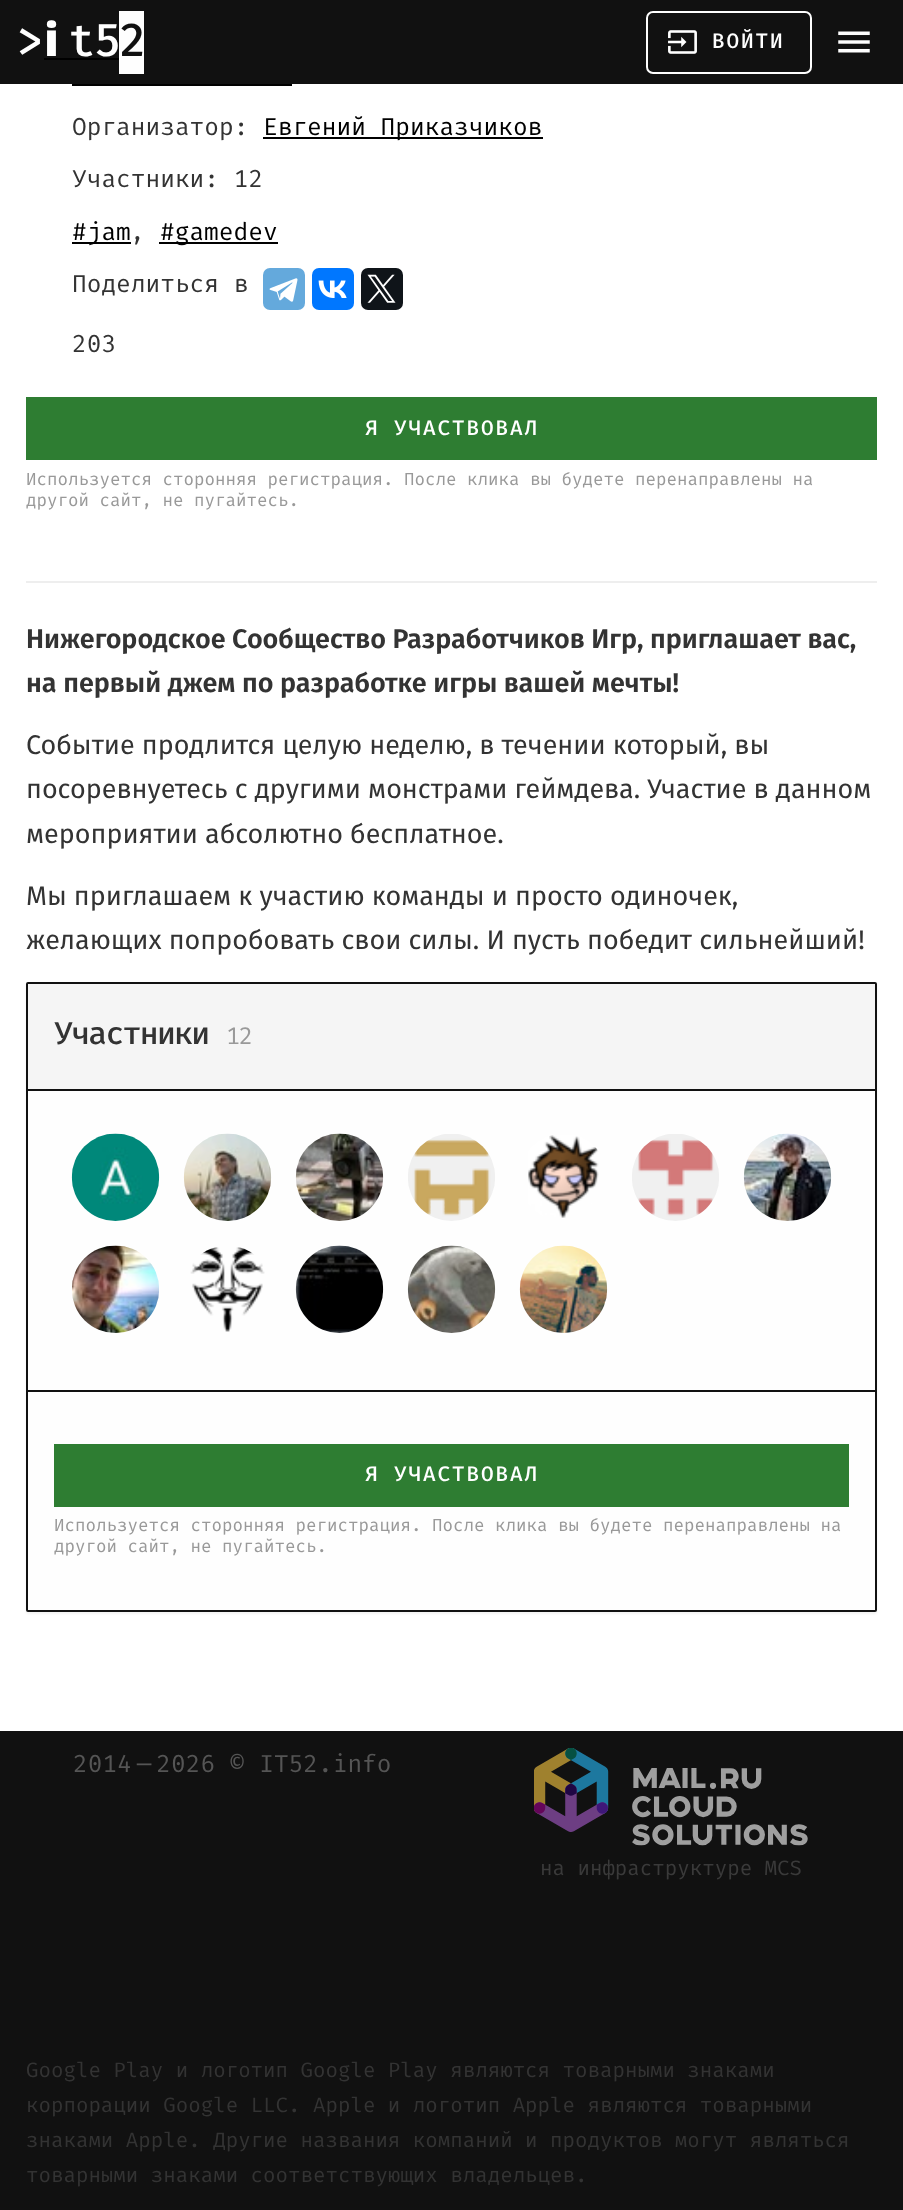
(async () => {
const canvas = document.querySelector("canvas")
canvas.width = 903
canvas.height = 2210
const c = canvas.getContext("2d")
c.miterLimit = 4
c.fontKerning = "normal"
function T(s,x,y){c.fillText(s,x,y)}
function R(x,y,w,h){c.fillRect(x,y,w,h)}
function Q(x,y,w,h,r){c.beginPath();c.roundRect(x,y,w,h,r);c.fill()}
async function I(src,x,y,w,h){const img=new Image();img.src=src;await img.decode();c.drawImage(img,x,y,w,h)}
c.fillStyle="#111"
R(0,0,903,2210)
c.letterSpacing="-1.75px"
c.font="500 46px Fira Mono"
c.fillStyle="#fff"
T(">",16,56)
c.font="900 46px Noto Sans"
T("i",44,56)
c.fillStyle="#000"
R(44,58,75,2)
c.font="500 46px Fira Mono"
c.fillStyle="#fff"
T("t5",68,56)
c.fillStyle="#fefefe"
R(119,11,25,63)
c.fillStyle="#111"
T("2",119,56)
c.beginPath()
c.roundRect(647,12,164,61,6)
c.strokeStyle="#fefefe"
c.lineWidth=2
c.stroke()
await I("1.png",668,30,29,24)
c.letterSpacing="1.9px"
c.font="500 21px Fira Mono"
c.fillStyle="#fff"
T("ВОЙТИ",712,48)
await I("2.png",838,31,32,22)
R(0,84,903,1647)
c.fillStyle="#000"
R(72,84,220,2)
c.letterSpacing="0px"
c.font="24.5px Fira Mono"
c.fillStyle="#333"
T("Организатор:",72,135)
c.fillStyle="#000"
R(263,137,280,2)
T("Евгений Приказчиков",263,135)
c.fillStyle="#333"
T("Участники: 12",72,187)
c.fillStyle="#000"
R(72,242,59,2)
T("#jam",72,240)
c.fillStyle="#333"
T(",",130,240)
c.fillStyle="#000"
R(159,242,119,2)
T("#gamedev",160,240)
c.fillStyle="#333"
T("Поделиться в",72,292)
c.fillStyle="#64a9dc"
Q(263,268,42,42,7)
await I("3.png",269,278,29,24)
c.fillStyle="#07f"
Q(312,268,42,42,7)
await I("4.png",318,280,29,18)
c.fillStyle="#0f1419"
Q(361,268,42,42,7)
await I("5.png",367,274,29,29)
c.fillStyle="#333"
T("203",72,352)
c.fillStyle="#2e7d32"
R(26,397,851,63)
c.letterSpacing="1.9px"
c.font="500 21px Fira Mono"
c.fillStyle="#fff"
T("Я УЧАСТВОВАЛ",365,435)
c.letterSpacing="0px"
c.font="17.5px Fira Mono"
c.fillStyle="#999"
T("Используется сторонняя регистрация. После клика вы будете перенаправлены на",26,485)
T("другой сайт, не пугайтесь.",26,506)
c.fillStyle="#eee"
R(26,581,851,2)
c.font="600 26.95px Fira Sans"
c.fillStyle="#333"
T("Нижегородское Сообщество Разработчиков Игр, приглашает вас,",26,648)
T("на первый джем по разработке игры вашей мечты!",26,692)
c.font="26.95px Fira Sans"
T("Событие продлится целую неделю, в течении который, вы",26,754)
T("посоревнуетесь с другими монстрами геймдева. Участие в данном",26,798)
T("мероприятии абсолютно бесплатное.",26,843)
T("Мы приглашаем к участию команды и просто одиночек,",26,905)
T("желающих попробовать свои силы. И пусть победит сильнейший!",26,949)
c.fillStyle="#0000000d"
c.filter="blur(1px)"
c.beginPath()
c.roundRect(26,984,851,630,2)
c.fill()
c.filter="none"
c.fillStyle="#fefefe"
c.beginPath()
c.roundRect(27,983,849,628,1)
c.fill()
c.strokeStyle="#111"
c.stroke()
c.fillStyle="#f5f5f5"
R(28,984,847,105)
c.fillStyle="#111"
R(28,1089,847,2)
c.letterSpacing="-1.75px"
c.font="500 31.5px Fira Mono"
c.fillStyle="#333"
T("Участники",54,1044)
c.font="24px Fira Mono"
c.fillStyle="#999"
T("12",226,1044)
await I("6.png",71,1133,89,88)
await I("7.png",183,1133,89,88)
await I("8.png",295,1133,89,88)
await I("9.png",408,1134,87,87)
await I("10.png",528,1135,71,83)
await I("11.png",632,1134,87,87)
await I("12.png",743,1133,89,88)
await I("13.png",72,1245,87,88)
await I("14.png",190,1247,75,85)
await I("15.png",295,1245,89,88)
await I("16.png",407,1245,89,88)
await I("17.png",519,1245,89,88)
c.fillStyle="#111"
R(28,1390,847,2)
c.fillStyle="#2e7d32"
R(54,1444,795,63)
c.letterSpacing="1.9px"
c.font="500 21px Fira Mono"
c.fillStyle="#fff"
T("Я УЧАСТВОВАЛ",365,1481)
c.letterSpacing="0px"
c.font="17.5px Fira Mono"
c.fillStyle="#999"
T("Используется сторонняя регистрация. После клика вы будете перенаправлены на",54,1531)
T("другой сайт, не пугайтесь.",54,1552)
c.font="24.5px Fira Mono"
c.fillStyle="#555"
T("2014 — 2026 © IT52.info",73,1772)
await I("18.png",534,1748,274,98)
c.font="20.8px Fira Mono"
c.fillStyle="#3a3a3a"
T("на инфраструктуре MCS",540,1875)
c.fillStyle="#333"
T("Google Play и логотип Google Play являются товарными знаками",26,2077)
T("корпорации Google LLC. Apple и логотип Apple являются товарными",26,2112)
T("знаками Apple. Другие названия компаний и продуктов могут являться",26,2147)
T("товарными знаками соответствующих владельцев.",26,2182)
})()
